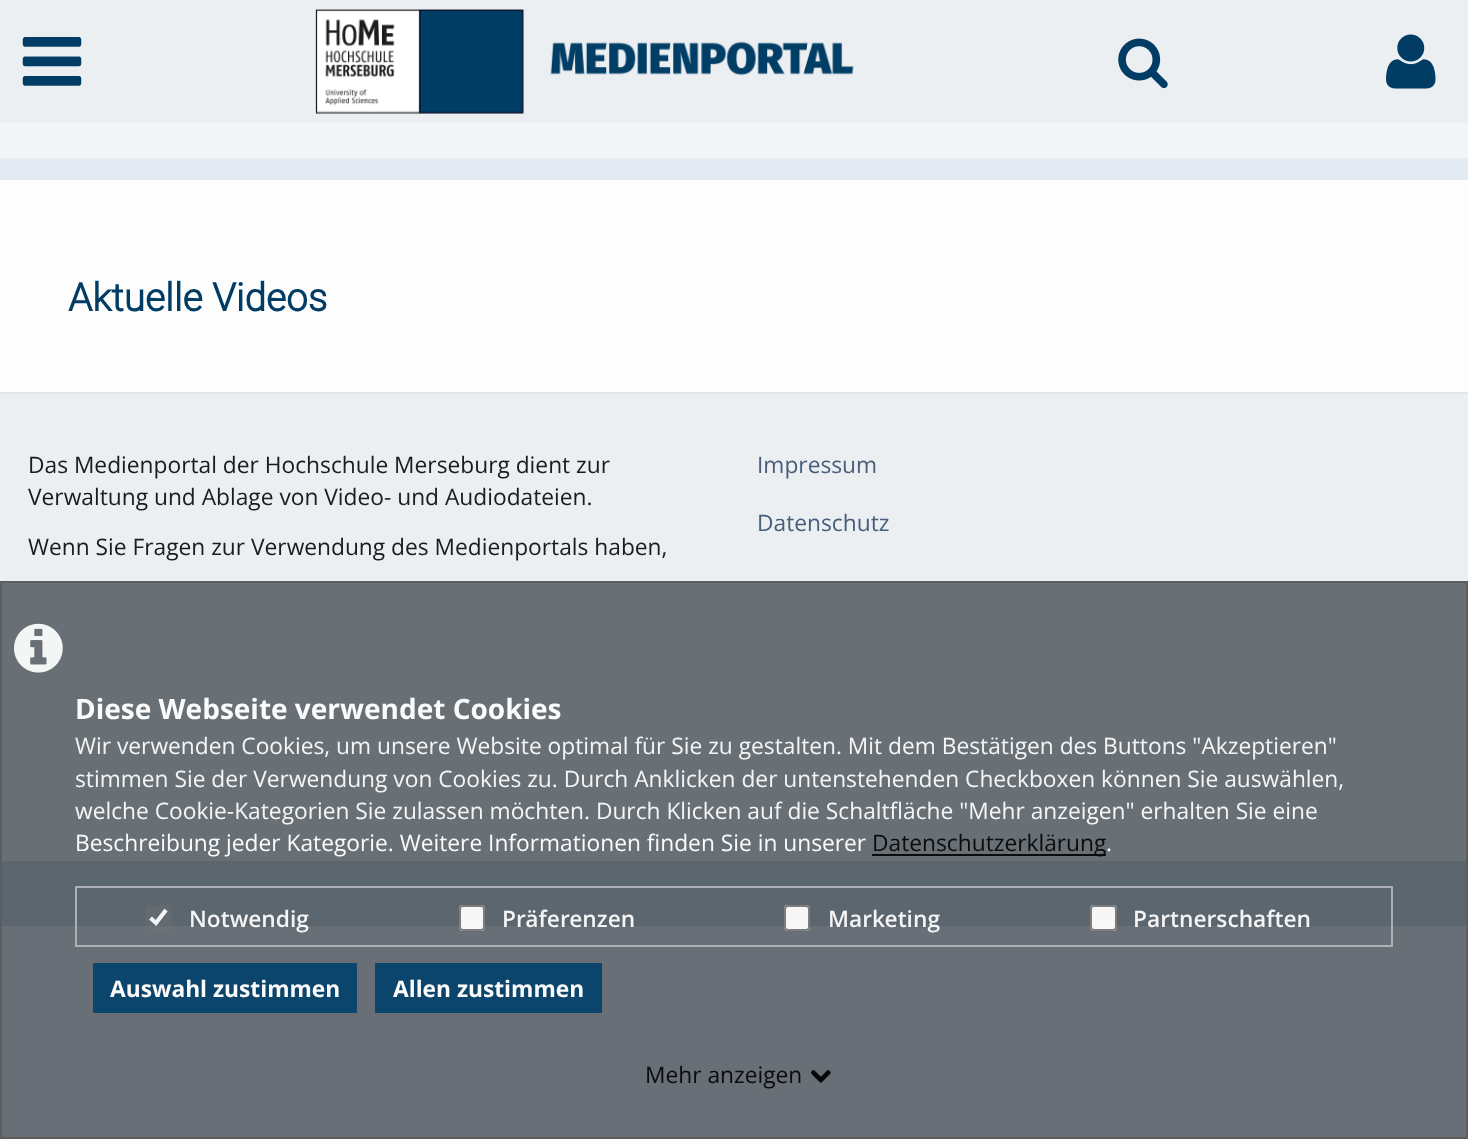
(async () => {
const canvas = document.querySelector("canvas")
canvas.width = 1468
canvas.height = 1139
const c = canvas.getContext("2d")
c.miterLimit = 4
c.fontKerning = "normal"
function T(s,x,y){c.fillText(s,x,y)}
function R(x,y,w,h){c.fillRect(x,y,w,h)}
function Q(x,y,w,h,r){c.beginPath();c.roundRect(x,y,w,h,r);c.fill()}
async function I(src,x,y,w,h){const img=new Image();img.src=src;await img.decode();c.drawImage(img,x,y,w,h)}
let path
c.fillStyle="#e3eaf2"
R(0,0,1468,1139)
c.fillStyle="#e6ecf3"
R(0,158,1468,1)
c.fillStyle="#f2f5f7"
R(0,123,1468,35)
c.fillStyle="#eceff2"
R(0,0,1468,123)
await I("1.png",22,37,60,49)
await I("2.png",315,9,539,105)
await I("3.png",1118,38,50,51)
await I("4.png",1386,34,50,55)
c.fillStyle="#fdfdfd"
R(0,180,1468,212)
c.font="bold 38.75px Roboto"
c.fillStyle="#003c64"
T("Aktuelle Videos",68,311)
c.fillStyle="#eceff2"
R(0,394,1468,467)
c.fillStyle="#e2e5ed"
R(0,392,1468,2)
c.font="22.75px Open Sans"
c.fillStyle="#1a1c1e"
T("Das Medienportal der Hochschule Merseburg dient zur",28,473)
T("Verwaltung und Ablage von Video- und Audiodateien.",28,505)
T("Wenn Sie Fragen zur Verwendung des Medienportals haben,",28,555)
c.fillStyle="#475d7b"
T("Impressum",757,473)
T("Datenschutz",757,531)
c.fillStyle="#003c64"
R(0,861,1468,65)
c.fillStyle="#61686ff2"
R(0,581,1468,558)
c.strokeStyle="#5c5c5cf2"
c.lineWidth=2
c.strokeRect(1,582,1466,556)
await I("5.png",14,623,49,50)
c.font="bold 28px Open Sans"
c.fillStyle="#fbfbfc"
T("Diese Webseite verwendet Cookies",75,719)
c.font="22.75px Open Sans"
c.fillStyle="#f5f5f5"
T("Wir verwenden Cookies, um unsere Website optimal für Sie zu gestalten. Mit dem Bestätigen des Buttons \"Akzeptieren\"",75,754)
T("stimmen Sie der Verwendung von Cookies zu. Durch Anklicken der untenstehenden Checkboxen können Sie auswählen,",75,787)
T("welche Cookie-Kategorien Sie zulassen möchten. Durch Klicken auf die Schaltfläche \"Mehr anzeigen\" erhalten Sie eine",75,819)
c.fillStyle="#fbfbfc"
T("Beschreibung jeder Kategorie. Weitere Informationen finden Sie in unserer",75,851)
c.fillStyle="#0c0c0c"
R(872,854,234,2)
T("Datenschutzerklärung",872,851)
c.fillStyle="#fbfbfc"
T(".",1106,851)
c.strokeStyle="#b0b3b8f2"
c.strokeRect(76,887,1316,59)
c.fillStyle="#76767647"
Q(145,905,27,26,4)
path = new Path2D("M150.5 918l5.5 5l10-13")
c.strokeStyle="#f2f5f7"
c.lineWidth=4.2
c.stroke(path)
c.font="600 22.75px Open Sans"
c.fillStyle="#f5f5f5"
T("Notwendig",189,927)
c.fillStyle="#fffffff2"
Q(459,905,26,26,4)
c.beginPath()
c.roundRect(460,906,24,24,3)
c.strokeStyle="#767676f2"
c.lineWidth=2
c.stroke()
c.fillStyle="#f5f5f5"
T("Präferenzen",502,927)
c.fillStyle="#fffffff2"
Q(784,905,26,26,4)
c.beginPath()
c.roundRect(785,906,24,24,3)
c.stroke()
c.fillStyle="#f5f5f5"
T("Marketing",828,927)
c.fillStyle="#fffffff2"
Q(1090,905,27,26,4)
c.beginPath()
c.roundRect(1091,906,25,24,3)
c.stroke()
c.fillStyle="#f5f5f5"
T("Partnerschaften",1133,927)
c.fillStyle="#0b456b"
R(93,963,264,50)
c.font="bold 22.75px Open Sans"
c.fillStyle="#fbfbfc"
T("Auswahl zustimmen",110,997)
c.fillStyle="#0b456b"
R(375,963,227,50)
c.fillStyle="#fbfbfc"
T("Allen zustimmen",393,997)
c.font="22.75px Open Sans"
c.fillStyle="#0c0c0c"
T("Mehr anzeigen",645,1083)
await I("6.png",811,1070,20,13)
})()
